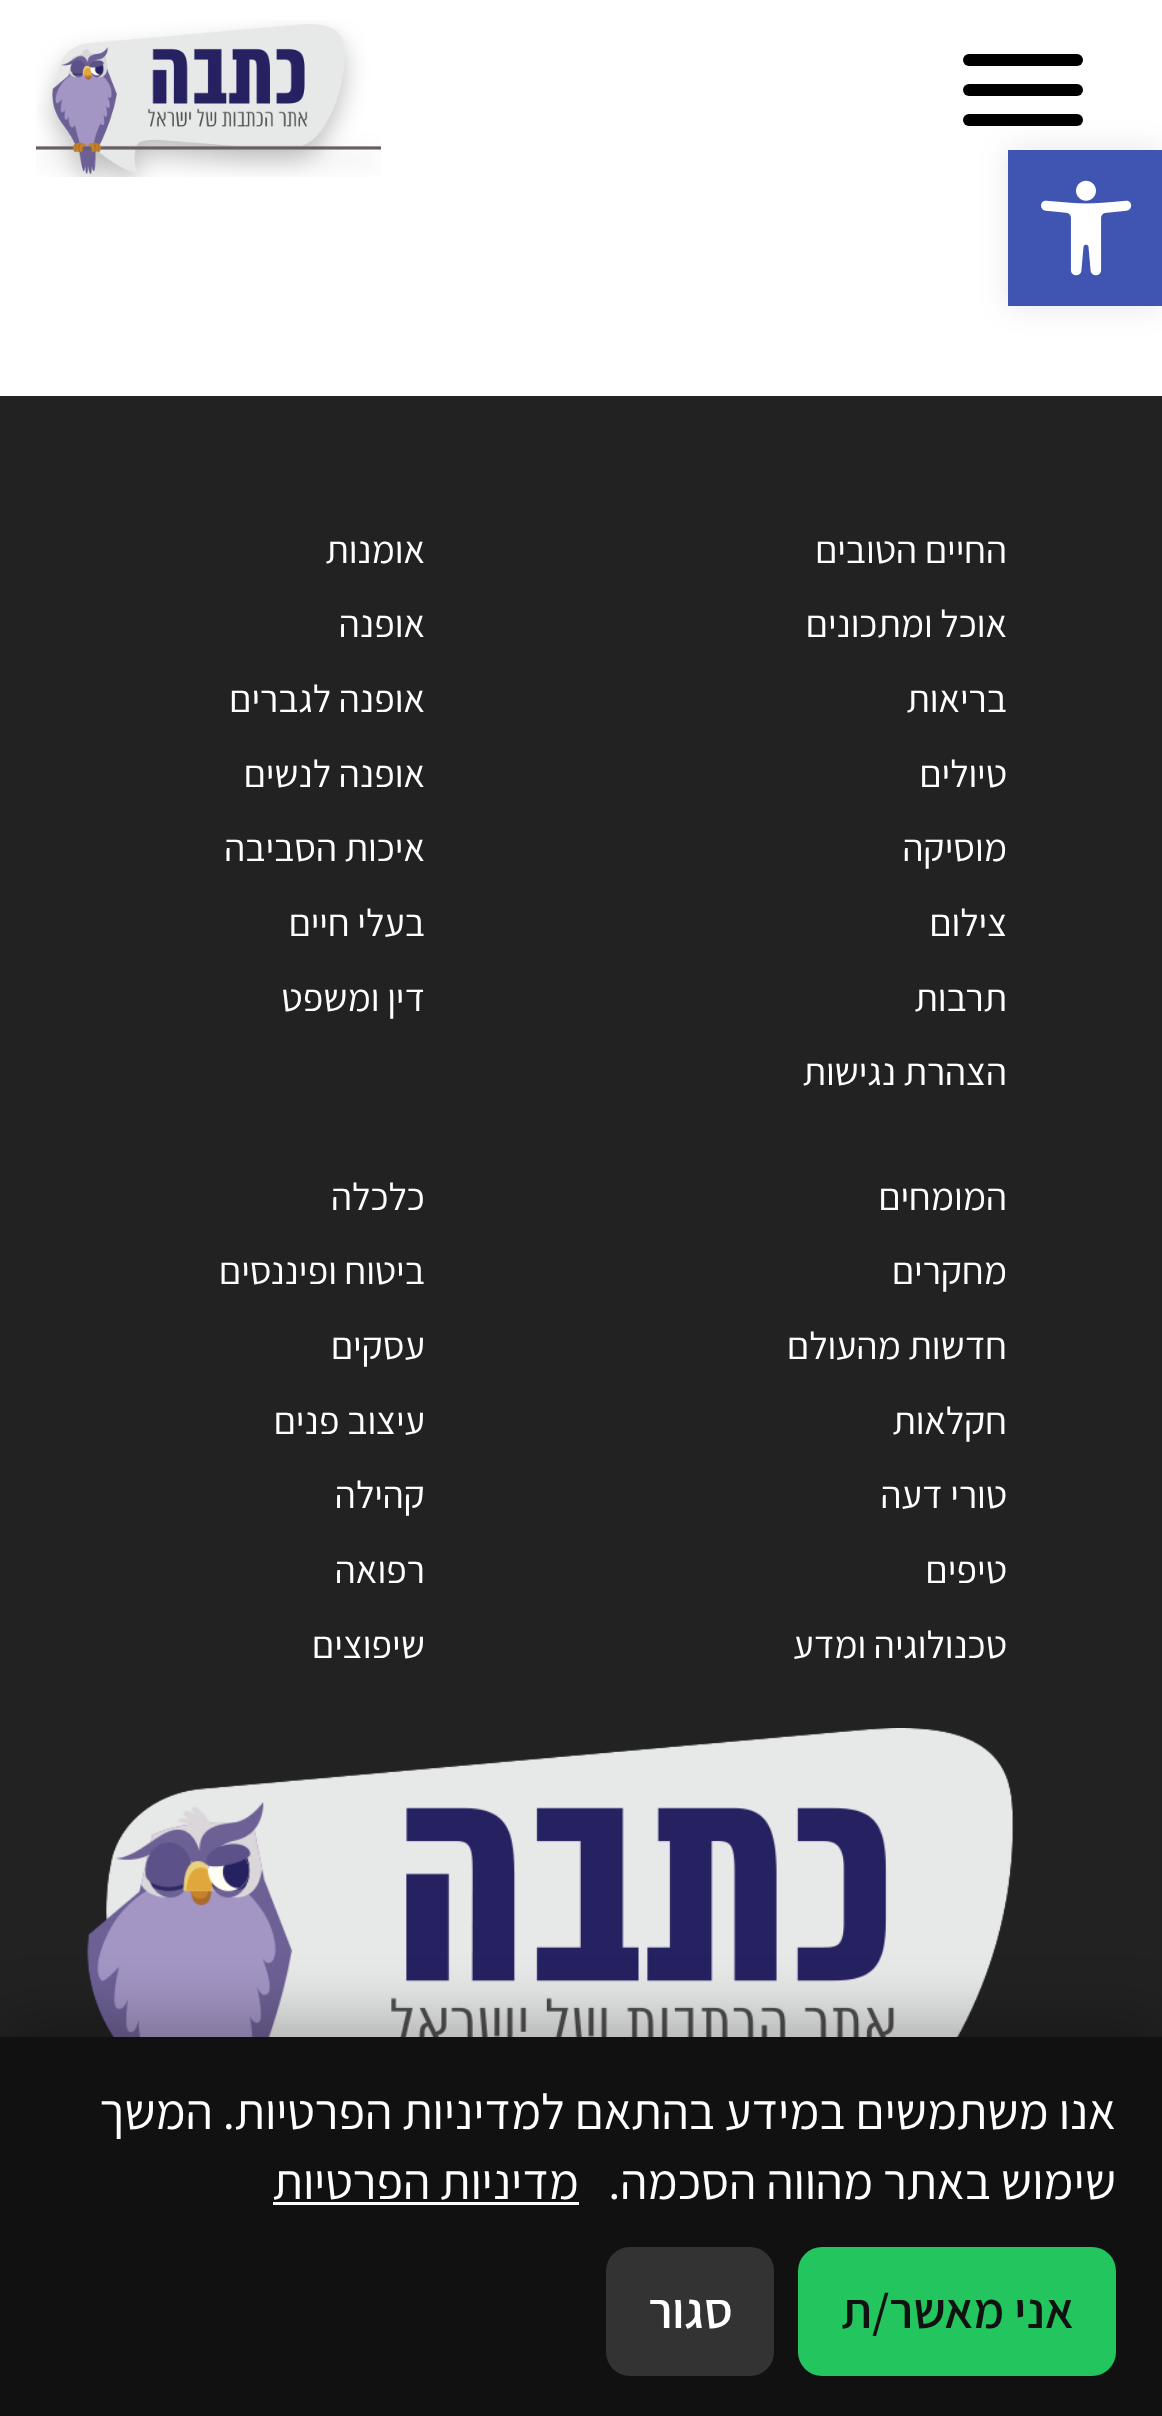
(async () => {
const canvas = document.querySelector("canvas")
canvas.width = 1162
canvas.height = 2416
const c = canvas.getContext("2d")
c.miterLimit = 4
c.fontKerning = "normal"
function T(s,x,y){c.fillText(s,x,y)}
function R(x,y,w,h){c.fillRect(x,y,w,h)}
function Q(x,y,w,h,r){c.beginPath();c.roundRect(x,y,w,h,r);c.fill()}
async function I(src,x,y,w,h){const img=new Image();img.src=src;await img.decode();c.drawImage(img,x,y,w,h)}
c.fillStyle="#fff"
R(0,0,1162,2416)
c.fillStyle="#000"
Q(963,84,120,12,6)
Q(963,54,120,12,6)
Q(963,114,120,12,6)
await I("1.png",36,20,345,157)
c.fillStyle="#0000001a"
c.filter="blur(15px)"
c.beginPath()
c.rect(1008,150,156,156)
c.fill()
c.filter="none"
c.fillStyle="#4054b2"
R(1008,150,154,156)
await I("2.png",1041,180,91,96)
c.fillStyle="#222"
R(0,396,1162,1641)
c.direction="rtl"
c.font="38.5px Assistant"
c.fillStyle="#fff"
T("החיים הטובים",1007,563)
T("אוכל ומתכונים",1007,637)
T("בריאות",1007,712)
T("טיולים",1007,787)
T("מוסיקה",1007,861)
T("צילום",1007,936)
T("תרבות",1007,1011)
T("הצהרת נגישות",1007,1085)
T("אומנות",425,563)
T("אופנה",425,637)
T("אופנה לגברים",425,712)
T("אופנה לנשים",425,787)
T("איכות הסביבה",425,861)
T("בעלי חיים",425,936)
T("דין ומשפט",425,1011)
T("המומחים",1007,1210)
T("מחקרים",1007,1284)
T("חדשות מהעולם",1007,1359)
T("חקלאות",1007,1434)
T("טורי דעה",1007,1508)
T("טיפים",1007,1583)
T("טכנולוגיה ומדע",1007,1658)
T("כלכלה",425,1210)
T("ביטוח ופיננסים",425,1284)
T("עסקים",425,1359)
T("עיצוב פנים",425,1434)
T("קהילה",425,1508)
T("רפואה",425,1583)
T("שיפוצים",425,1658)
await I("3.png",87,1728,927,309)
c.fillStyle="#00000040"
c.filter="blur(30px)"
c.beginPath()
c.rect(0,2019,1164,381)
c.fill()
c.filter="none"
c.fillStyle="#111"
R(0,2037,1162,379)
c.font="49.8px Assistant"
c.fillStyle="#fff"
T("אנו משתמשים במידע בהתאם למדיניות הפרטיות. המשך",1116,2129)
T("שימוש באתר מהווה הסכמה.",1116,2199)
T("מדיניות הפרטיות",579,2199)
R(273,2202,306,3)
c.fillStyle="#22c55e"
Q(798,2247,318,129,24)
c.font="600 49.8px Assistant"
c.fillStyle="#111"
T("אני מאשר/ת",1074,2328)
c.fillStyle="#333"
Q(606,2247,168,129,24)
c.fillStyle="#fff"
T("סגור",733,2328)
})()
